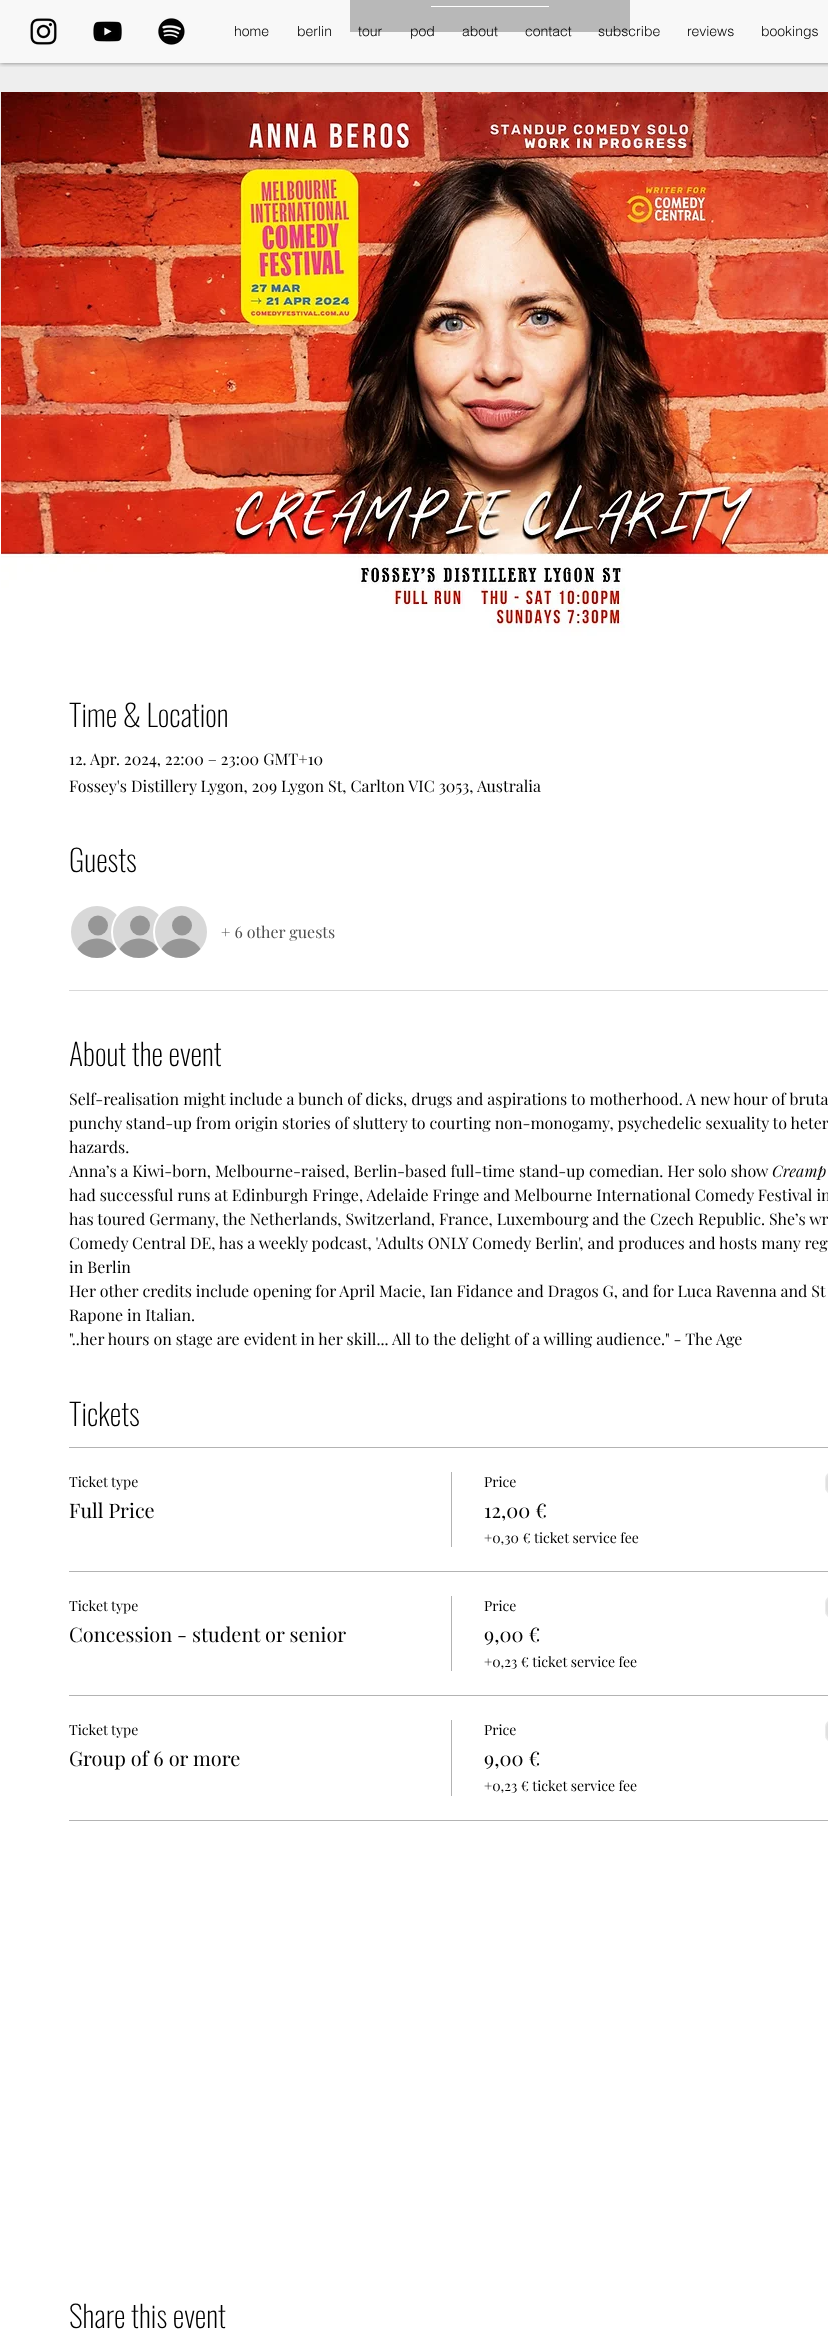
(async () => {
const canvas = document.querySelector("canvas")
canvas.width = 828
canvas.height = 2339
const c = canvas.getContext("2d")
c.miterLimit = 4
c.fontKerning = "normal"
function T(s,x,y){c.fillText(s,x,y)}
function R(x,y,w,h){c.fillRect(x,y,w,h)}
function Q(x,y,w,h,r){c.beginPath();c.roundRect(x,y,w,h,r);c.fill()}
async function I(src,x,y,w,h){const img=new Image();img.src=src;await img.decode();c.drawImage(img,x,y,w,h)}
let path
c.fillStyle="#fff"
R(0,0,828,2339)
c.fillStyle="#eee"
R(0,63,828,305)
c.fillStyle="#f8f8f8"
R(0,0,828,63)
c.fillStyle="#b8b8b8"
R(350,0,280,32)
c.fillStyle="#fff"
R(431,6,118,1)
c.save()
c.beginPath()
c.rect(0,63,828,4)
c.clip()
c.fillStyle="#00000080"
c.filter="blur(2.5px)"
c.beginPath()
c.rect(0,0,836,63)
c.fill()
c.filter="none"
c.restore()
await I("1.png",30,18,27,27)
await I("2.png",93,21,29,21)
await I("3.png",158,18,27,27)
c.font="300 14px helvetica"
c.fillStyle="#000"
T("home",234,36)
T("berlin",297,36)
T("tour",358,36)
T("pod",410,36)
T("about",462,36)
T("contact",525,36)
T("subscribe",598,36)
T("reviews",687,36)
T("bookings",761,36)
await I("4.png",1,92,827,552)
c.font="200 30px Oswald"
T("Time & Location",69,727)
c.font="16px Playfair Display"
T("12. Apr. 2024, 22:00 – 23:00 GMT+10",69,765)
T("Fossey's Distillery Lygon, 209 Lygon St, Carlton VIC 3053, Australia",69,792)
c.font="200 30px Oswald"
T("Guests",69,872)
c.fillStyle="#d8d8d8"
c.beginPath()
c.arc(97,932,27,0,7)
c.fill()
c.strokeStyle="#fff"
c.lineWidth=2
c.stroke()
c.fillStyle="#969696"
c.beginPath()
c.arc(98,925.5,10,0,7)
c.fill()
path = new Path2D("M116.5 949c-10 12-29 12-39 0c8.5-14 30.5-14 39 0z")
c.fill(path)
c.fillStyle="#d8d8d8"
c.beginPath()
c.arc(139,932,27,0,7)
c.fill()
c.stroke()
c.fillStyle="#969696"
c.beginPath()
c.arc(140,925.5,10,0,7)
c.fill()
path = new Path2D("M158.5 949c-10 12-29 12-39 0c8.5-14 30.5-14 39 0z")
c.fill(path)
c.fillStyle="#d8d8d8"
c.beginPath()
c.arc(181,932,27,0,7)
c.fill()
c.stroke()
c.fillStyle="#969696"
c.beginPath()
c.arc(182,925.5,10,0,7)
c.fill()
path = new Path2D("M200.5 949c-10 12-29 12-39 0c8.5-14 30.5-14 39 0z")
c.fill(path)
c.font="16px Playfair Display"
c.fillStyle="#4d4d4d"
T("+ 6 other guests",221,938)
c.fillStyle="#d9d9d9"
R(69,990,759,1)
c.font="200 30px Oswald"
c.fillStyle="#000"
T("About the event",69,1066)
c.font="16px Playfair Display"
T("Self-realisation might include a bunch of dicks, drugs and aspirations to motherhood. A new hour of bruta",69,1105)
T("punchy stand-up from origin stories of sluttery to courting non-monogamy, psychedelic sexuality to heter",69,1129)
T("hazards.",69,1153)
T("Anna’s a Kiwi-born, Melbourne-raised, Berlin-based full-time stand-up comedian. Her solo show",69,1177)
c.font="italic 16px Playfair Display"
T("Creamp",772,1177)
c.font="16px Playfair Display"
T("had successful runs at Edinburgh Fringe, Adelaide Fringe and Melbourne International Comedy Festival in",69,1201)
T("has toured Germany, the Netherlands, Switzerland, France, Luxembourg and the Czech Republic. She’s wr",69,1225)
T("Comedy Central DE, has a weekly podcast, 'Adults ONLY Comedy Berlin', and produces and hosts many reg",69,1249)
T("in Berlin",69,1273)
T("Her other credits include opening for April Macie, Ian Fidance and Dragos G, and for Luca Ravenna and St",69,1297)
T("Rapone in Italian.",69,1321)
T("\"..her hours on stage are evident in her skill... All to the delight of a willing audience.\" - The Age",69,1345)
c.font="200 30px Oswald"
T("Tickets",69,1426)
c.fillStyle="#b3b3b3"
R(69,1447,759,1)
R(69,1571,759,1)
c.font="14px Playfair Display"
c.fillStyle="#000"
T("Ticket type",69,1487)
c.font="20px Playfair Display"
T("Full Price",69,1518)
c.fillStyle="#b3b3b3"
R(451,1472,1,75)
c.font="14px Playfair Display"
c.fillStyle="#000"
T("Price",484,1487)
c.font="20px Playfair Display"
T("12,00 €",484,1518)
c.font="14px Playfair Display"
T("+0,30 € ticket service fee",484,1543)
c.fillStyle="#e0e0e0"
Q(825,1472,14,22,11)
c.beginPath()
c.roundRect(825.5,1472.5,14,21,10.5)
c.strokeStyle="#ffffff66"
c.lineWidth=1
c.stroke()
c.fillStyle="#b3b3b3"
R(69,1695,759,1)
c.fillStyle="#000"
T("Ticket type",69,1611)
c.font="20px Playfair Display"
T("Concession - student or senior",69,1642)
c.fillStyle="#b3b3b3"
R(451,1596,1,75)
c.font="14px Playfair Display"
c.fillStyle="#000"
T("Price",484,1611)
c.font="20px Playfair Display"
T("9,00 €",484,1642)
c.font="14px Playfair Display"
T("+0,23 € ticket service fee",484,1667)
c.fillStyle="#e0e0e0"
Q(825,1596,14,22,11)
c.beginPath()
c.roundRect(825.5,1596.5,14,21,10.5)
c.stroke()
c.fillStyle="#b3b3b3"
R(69,1820,759,1)
c.fillStyle="#000"
T("Ticket type",69,1735)
c.font="20px Playfair Display"
T("Group of 6 or more",69,1766)
c.fillStyle="#b3b3b3"
R(451,1720,1,76)
c.font="14px Playfair Display"
c.fillStyle="#000"
T("Price",484,1735)
c.font="20px Playfair Display"
T("9,00 €",484,1766)
c.font="14px Playfair Display"
T("+0,23 € ticket service fee",484,1791)
c.fillStyle="#e0e0e0"
Q(825,1720,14,22,11)
c.beginPath()
c.roundRect(825.5,1720.5,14,21,10.5)
c.stroke()
c.font="200 30px Oswald"
c.fillStyle="#000"
T("Share this event",69,2328)
})()
